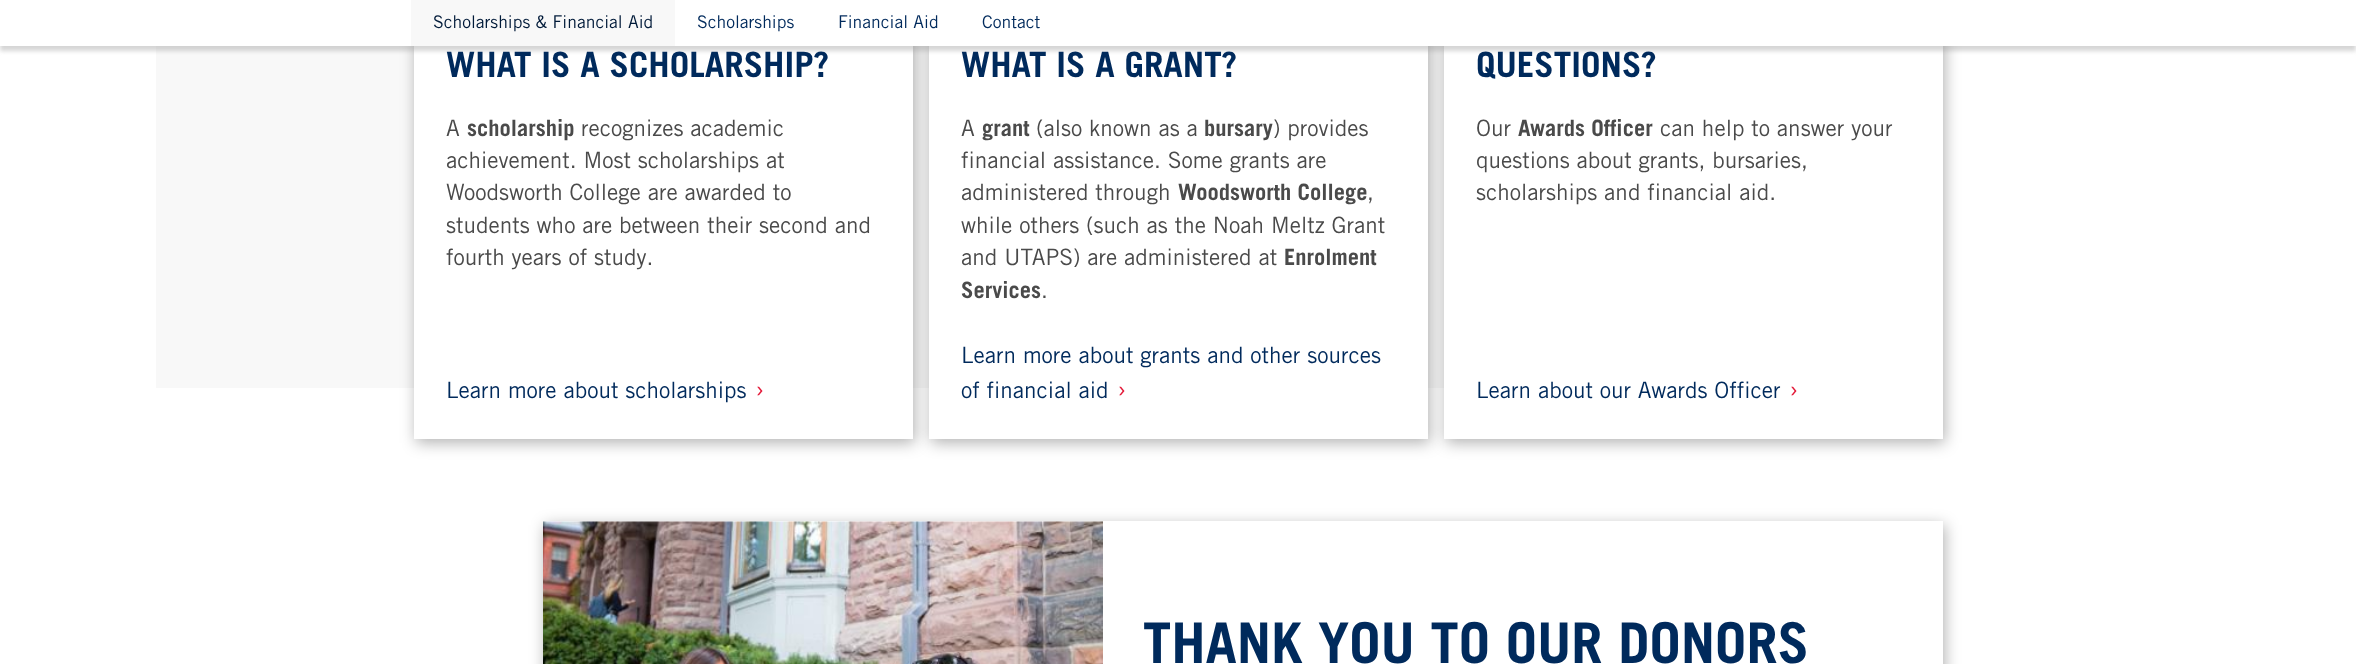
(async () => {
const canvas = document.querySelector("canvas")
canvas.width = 2356
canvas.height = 664
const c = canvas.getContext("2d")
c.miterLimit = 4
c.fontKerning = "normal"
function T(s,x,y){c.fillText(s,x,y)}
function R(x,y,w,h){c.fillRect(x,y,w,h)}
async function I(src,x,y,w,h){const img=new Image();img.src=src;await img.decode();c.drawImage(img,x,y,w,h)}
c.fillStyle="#fff"
R(0,0,2356,664)
c.fillStyle="#f8f8f8"
R(156,46,1288,342)
c.fillStyle="#0000004d"
c.filter="blur(7.5px)"
c.beginPath()
c.rect(416,16,499,427)
c.fill()
c.filter="none"
c.fillStyle="#fff"
R(414,46,499,393)
c.fillStyle="#0000004d"
c.filter="blur(7.5px)"
c.beginPath()
c.rect(931,16,499,427)
c.fill()
c.filter="none"
c.fillStyle="#fff"
R(929,46,499,393)
c.fillStyle="#0000004d"
c.filter="blur(7.5px)"
c.beginPath()
c.rect(1446,16,499,427)
c.fill()
c.filter="none"
c.fillStyle="#fff"
R(1444,46,499,393)
c.fillStyle="#99999966"
c.filter="blur(2px)"
c.beginPath()
c.rect(0,4,2356,47)
c.fill()
c.filter="none"
c.fillStyle="#fff"
R(0,0,2356,46)
c.fillStyle="#f8f8f8"
R(411,0,264,46)
c.font="17.5px Trade Gothic"
c.fillStyle="#001a39"
T("Scholarships & Financial Aid",433,28)
c.fillStyle="#002a5c"
T("Scholarships",697,28)
T("Financial Aid",838,28)
T("Contact",982,28)
c.font="bold 35px Trade Gothic"
T("WHAT IS A SCHOLARSHIP?",446,77)
c.font="22.5px Trade Gothic"
c.fillStyle="#4a4a4a"
T("A",446,136)
c.font="bold 22.5px Trade Gothic"
T("scholarship",467,136)
c.font="22.5px Trade Gothic"
T("recognizes academic",581,136)
T("achievement. Most scholarships at",446,168)
T("Woodsworth College are awarded to",446,200)
T("students who are between their second and",446,233)
T("fourth years of study.",446,265)
c.fillStyle="#002a5c"
T("Learn more about scholarships",446,398)
c.font="27px Trade Gothic"
c.fillStyle="#e31837"
T("›",755,398)
c.font="bold 35px Trade Gothic"
c.fillStyle="#002a5c"
T("WHAT IS A GRANT?",961,77)
c.font="22.5px Trade Gothic"
c.fillStyle="#4a4a4a"
T("A",961,136)
c.font="bold 22.5px Trade Gothic"
T("grant",982,136)
c.font="22.5px Trade Gothic"
T("(also known as a",1036,136)
c.font="bold 22.5px Trade Gothic"
T("bursary",1204,136)
c.font="22.5px Trade Gothic"
T(") provides",1273,136)
T("financial assistance. Some grants are",961,168)
T("administered through",961,200)
c.font="bold 22.5px Trade Gothic"
T("Woodsworth College",1178,200)
c.font="22.5px Trade Gothic"
T(",",1367,200)
T("while others (such as the Noah Meltz Grant",961,233)
T("and UTAPS) are administered at",961,265)
c.font="bold 22.5px Trade Gothic"
T("Enrolment",1284,265)
T("Services",961,298)
c.font="22.5px Trade Gothic"
T(".",1041,298)
c.fillStyle="#002a5c"
T("Learn more about grants and other sources",961,363)
T("of financial aid",961,398)
c.font="27px Trade Gothic"
c.fillStyle="#e31837"
T("›",1117,398)
c.font="bold 35px Trade Gothic"
c.fillStyle="#002a5c"
T("QUESTIONS?",1476,77)
c.font="22.5px Trade Gothic"
c.fillStyle="#4a4a4a"
T("Our",1476,136)
c.font="bold 22.5px Trade Gothic"
T("Awards Officer",1518,136)
c.font="22.5px Trade Gothic"
T("can help to answer your",1660,136)
T("questions about grants, bursaries,",1476,168)
T("scholarships and financial aid.",1476,200)
c.fillStyle="#002a5c"
T("Learn about our Awards Officer",1476,398)
c.font="27px Trade Gothic"
c.fillStyle="#e31837"
T("›",1789,398)
c.fillStyle="#0000004d"
c.filter="blur(7.5px)"
c.beginPath()
c.rect(545,525,1400,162)
c.fill()
c.filter="none"
c.fillStyle="#fff"
R(543,521,1400,143)
await I("1.png",543,521,560,143)
c.font="bold 56.25px Trade Gothic"
c.fillStyle="#002a5c"
T("THANK YOU TO OUR DONORS",1143,663)
})()
